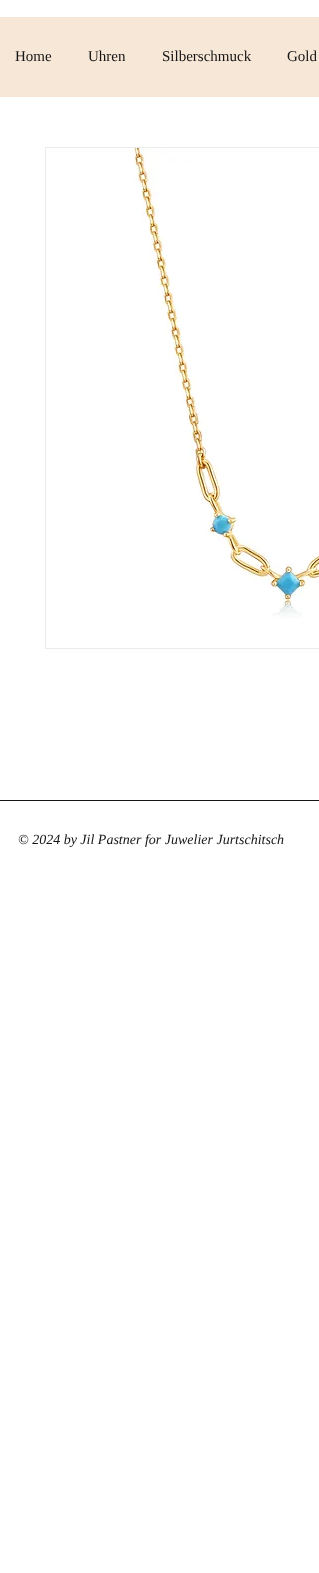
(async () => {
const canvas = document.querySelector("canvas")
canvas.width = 319
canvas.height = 1573
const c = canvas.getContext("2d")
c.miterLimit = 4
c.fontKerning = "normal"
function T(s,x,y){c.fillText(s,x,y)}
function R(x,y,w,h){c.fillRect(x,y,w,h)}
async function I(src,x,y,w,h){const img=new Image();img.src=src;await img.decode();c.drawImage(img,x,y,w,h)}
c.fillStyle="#fff"
R(0,0,319,1573)
c.fillStyle="#f7e7d7"
R(0,17,319,80)
c.font="15px Liberation Serif"
c.fillStyle="#151515"
T("Home",15,61)
T("Uhren",88,61)
T("Silberschmuck",162,61)
T("Gold",287,61)
c.strokeStyle="#ebebeb"
c.strokeRect(45.5,147.5,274,501)
await I("1.png",133,148,186,470)
R(0,800,319,1)
c.font="italic 14px Liberation Serif"
T("© 2024 by Jil Pastner for Juwelier Jurtschitsch",18,844)
})()
